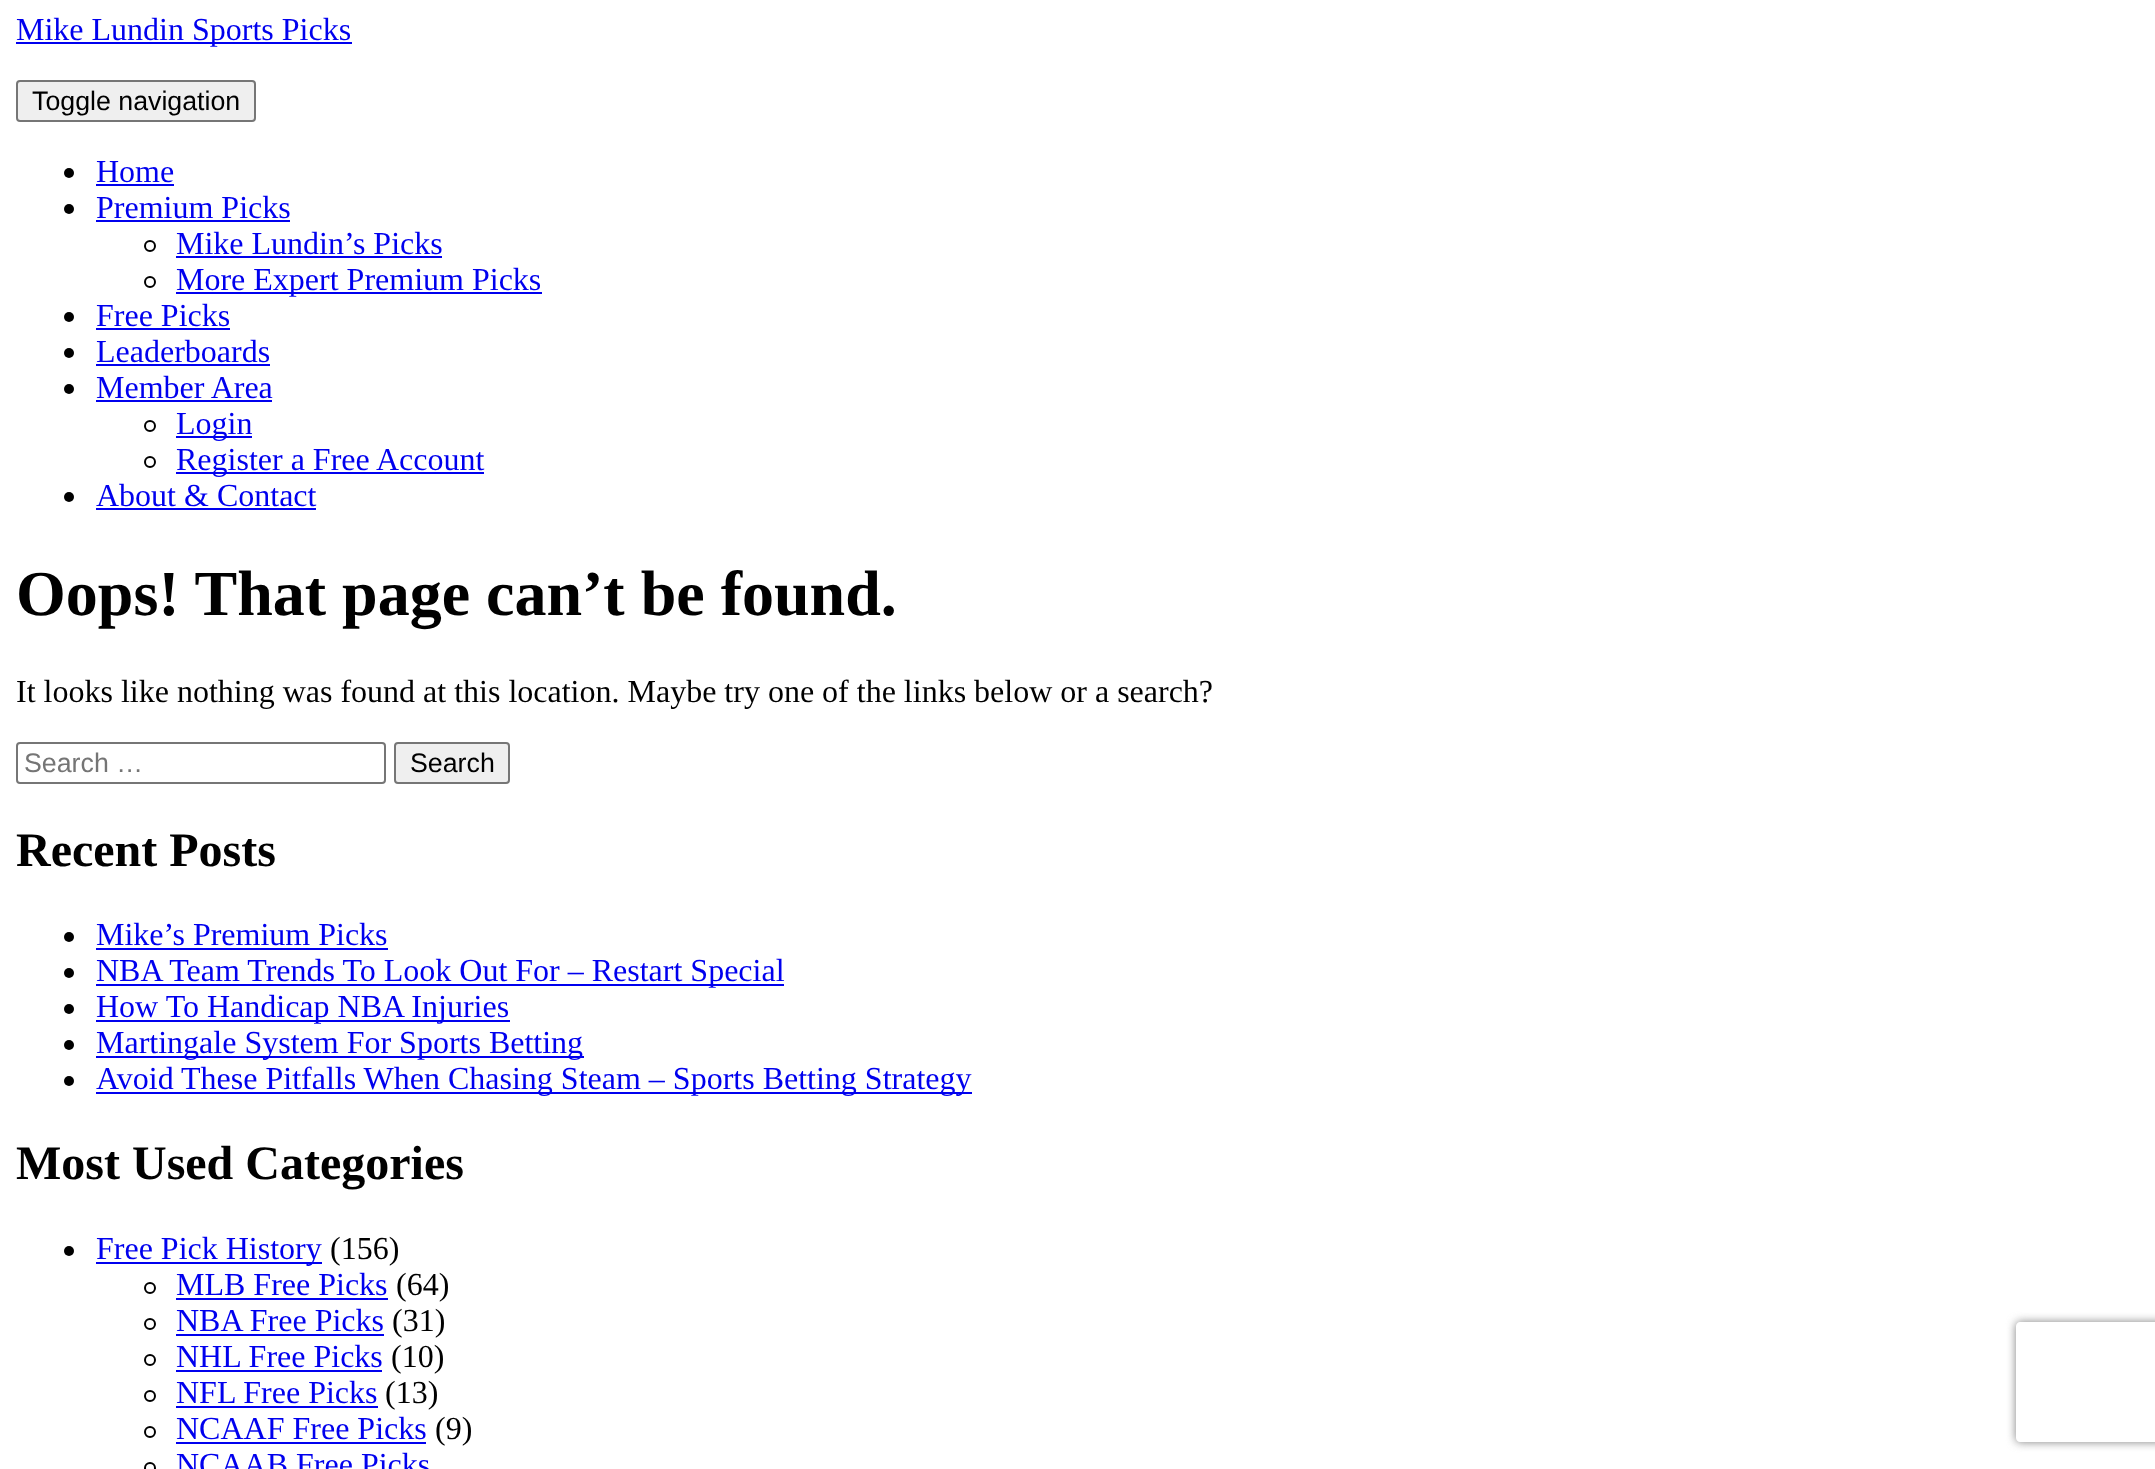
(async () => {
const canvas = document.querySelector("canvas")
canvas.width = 2155
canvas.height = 1469
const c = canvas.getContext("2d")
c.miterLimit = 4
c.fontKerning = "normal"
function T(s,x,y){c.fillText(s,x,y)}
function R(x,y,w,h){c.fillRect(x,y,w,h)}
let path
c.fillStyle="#fff"
R(0,0,2155,1469)
c.fillStyle="#00e"
R(16,42,336,2)
c.font="32px Liberation Serif"
T("Mike Lundin Sports Picks",16,40)
c.fillStyle="#efefef"
c.beginPath()
c.roundRect(17,81,238,40,3)
c.fill()
c.strokeStyle="#767676"
c.lineWidth=2
c.stroke()
c.font="26.75px Liberation Sans"
c.fillStyle="#000"
T("Toggle navigation",32,110)
c.beginPath()
c.arc(69,173,5,0,7)
c.fill()
c.font="32px Liberation Serif"
c.fillStyle="#00e"
T("Home",96,182)
R(96,184,78,2)
c.fillStyle="#000"
c.beginPath()
c.arc(69,209,5,0,7)
c.fill()
c.fillStyle="#00e"
T("Premium Picks",96,218)
R(96,220,194,2)
c.beginPath()
c.arc(150,246,5,0,7)
c.strokeStyle="#000"
c.stroke()
T("Mike Lundin’s Picks",176,254)
R(176,256,266,2)
c.beginPath()
c.arc(150,282,5,0,7)
c.stroke()
R(176,292,366,2)
T("More Expert Premium Picks",176,290)
c.fillStyle="#000"
c.beginPath()
c.arc(69,317,5,0,7)
c.fill()
c.fillStyle="#00e"
T("Free Picks",96,326)
R(96,328,134,2)
c.fillStyle="#000"
c.beginPath()
c.arc(69,353,5,0,7)
c.fill()
c.fillStyle="#00e"
T("Leaderboards",96,362)
R(96,364,174,2)
c.fillStyle="#000"
c.beginPath()
c.arc(69,389,5,0,7)
c.fill()
c.fillStyle="#00e"
T("Member Area",96,398)
R(96,400,176,2)
c.beginPath()
c.arc(150,426,5,0,7)
c.stroke()
R(176,436,76,2)
T("Login",176,434)
c.beginPath()
c.arc(150,462,5,0,7)
c.stroke()
R(176,472,308,2)
T("Register a Free Account",176,470)
c.fillStyle="#000"
c.beginPath()
c.arc(69,497,5,0,7)
c.fill()
c.fillStyle="#00e"
T("About & Contact",96,506)
R(96,508,220,2)
c.font="bold 64px Liberation Serif"
c.fillStyle="#000"
T("Oops! That page can’t be found.",16,615)
c.font="32px Liberation Serif"
T("It looks like nothing was found at this location. Maybe try one of the links below or a search?",16,702)
c.beginPath()
c.roundRect(17,743,368,40,3)
c.strokeStyle="#767676"
c.stroke()
c.font="26.75px Liberation Sans"
c.fillStyle="#757575"
T("Search …",24,772)
c.fillStyle="#efefef"
c.beginPath()
c.roundRect(395,743,114,40,3)
c.fill()
c.stroke()
c.fillStyle="#000"
T("Search",410,772)
c.font="bold 48px Liberation Serif"
T("Recent Posts",16,866)
c.beginPath()
c.arc(69,937,5,0,7)
c.fill()
c.font="32px Liberation Serif"
c.fillStyle="#00e"
T("Mike’s Premium Picks",96,945)
R(96,948,292,2)
c.fillStyle="#000"
c.beginPath()
c.arc(69,973,5,0,7)
c.fill()
c.fillStyle="#00e"
R(96,984,688,2)
T("NBA Team Trends To Look Out For – Restart Special",96,981)
c.fillStyle="#000"
c.beginPath()
c.arc(69,1009,5,0,7)
c.fill()
c.fillStyle="#00e"
R(96,1020,414,2)
T("How To Handicap NBA Injuries",96,1017)
c.fillStyle="#000"
c.beginPath()
c.arc(69,1045,5,0,7)
c.fill()
c.fillStyle="#00e"
R(96,1056,488,2)
T("Martingale System For Sports Betting",96,1053)
c.fillStyle="#000"
c.beginPath()
c.arc(69,1081,5,0,7)
c.fill()
c.fillStyle="#00e"
R(96,1092,876,2)
T("Avoid These Pitfalls When Chasing Steam – Sports Betting Strategy",96,1089)
c.font="bold 48px Liberation Serif"
c.fillStyle="#000"
T("Most Used Categories",16,1179)
c.beginPath()
c.arc(69,1251,5,0,7)
c.fill()
c.fillStyle="#00e"
R(96,1262,226,2)
c.font="32px Liberation Serif"
T("Free Pick History",96,1259)
c.fillStyle="#000"
T("(156)",330,1259)
c.beginPath()
c.arc(150,1288,5,0,7)
c.strokeStyle="#000"
c.stroke()
c.fillStyle="#00e"
T("MLB Free Picks",176,1295)
R(176,1298,212,2)
c.fillStyle="#000"
T("(64)",396,1295)
c.beginPath()
c.arc(150,1324,5,0,7)
c.stroke()
c.fillStyle="#00e"
T("NBA Free Picks",176,1331)
R(176,1334,208,2)
c.fillStyle="#000"
T("(31)",392,1331)
c.beginPath()
c.arc(150,1360,5,0,7)
c.stroke()
c.fillStyle="#00e"
T("NHL Free Picks",176,1367)
R(176,1370,206,2)
c.fillStyle="#000"
T("(10)",391,1367)
c.beginPath()
c.arc(150,1396,5,0,7)
c.stroke()
c.fillStyle="#00e"
T("NFL Free Picks",176,1403)
R(176,1406,202,2)
c.fillStyle="#000"
T("(13)",385,1403)
c.beginPath()
c.arc(150,1432,5,0,7)
c.stroke()
c.fillStyle="#00e"
T("NCAAF Free Picks",176,1439)
R(176,1442,250,2)
c.fillStyle="#000"
T("(9)",435,1439)
c.beginPath()
c.arc(150,1468,5,0,7)
c.stroke()
c.fillStyle="#00e"
T("NCAAB Free Picks",176,1475)
c.save()
path = new Path2D("M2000 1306h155v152h-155zm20 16h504c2 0 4 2 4 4v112c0 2-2 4-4 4h-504c-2 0-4-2-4-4v-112c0-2 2-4 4-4z")
c.clip(path,"evenodd")
c.fillStyle="#808080"
c.filter="blur(5px)"
c.beginPath()
c.roundRect(2016,1322,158,120,4)
c.fill()
c.filter="none"
c.restore()
})()
